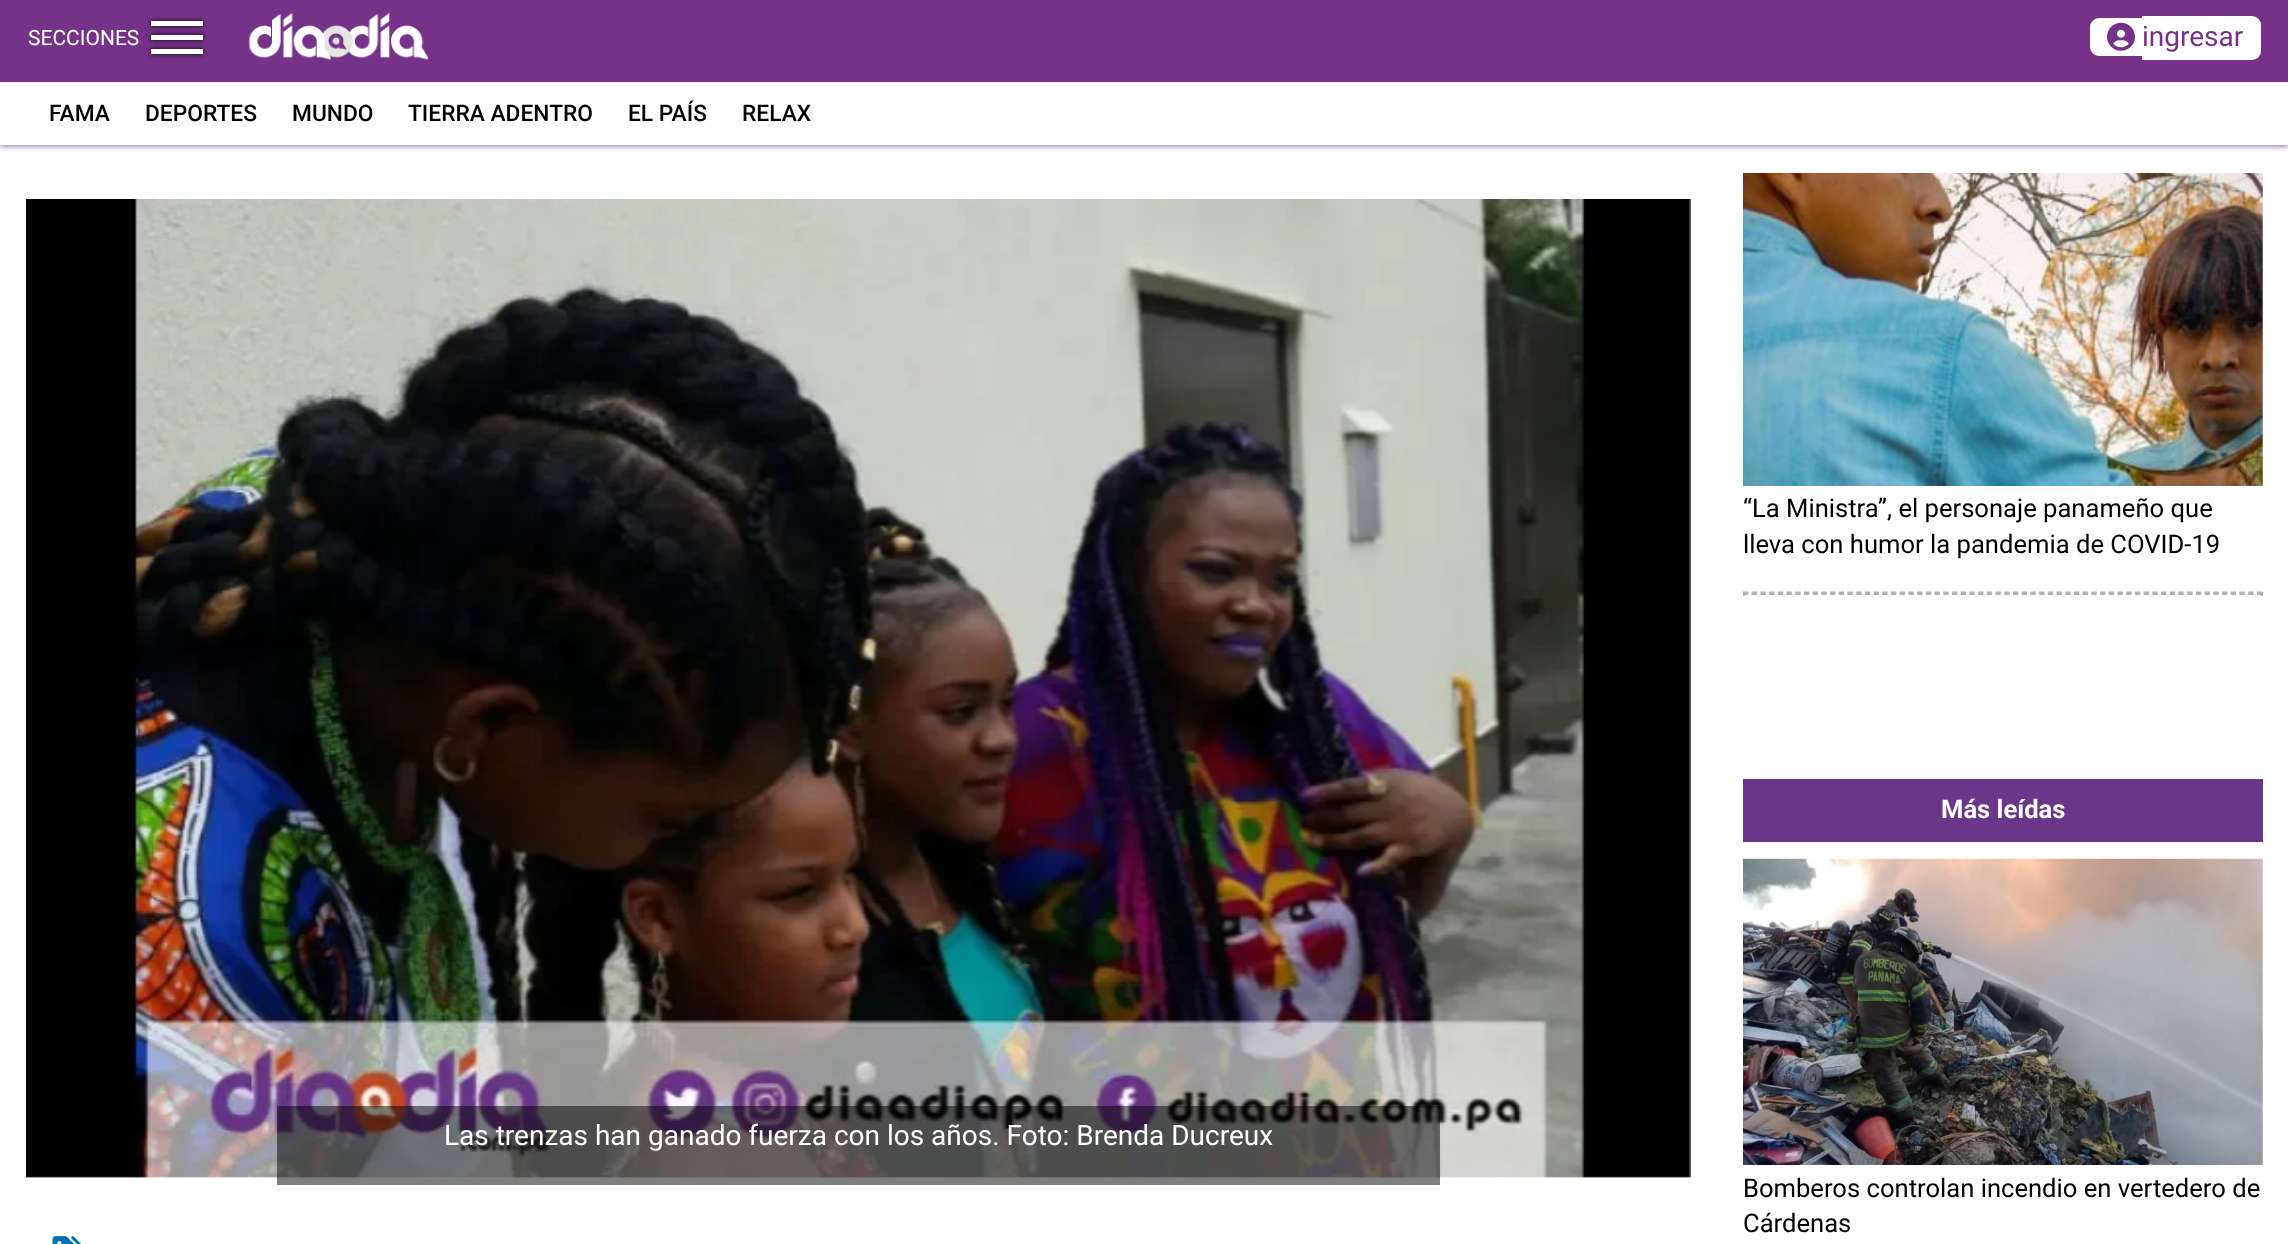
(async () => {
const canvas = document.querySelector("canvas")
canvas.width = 2288
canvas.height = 1244
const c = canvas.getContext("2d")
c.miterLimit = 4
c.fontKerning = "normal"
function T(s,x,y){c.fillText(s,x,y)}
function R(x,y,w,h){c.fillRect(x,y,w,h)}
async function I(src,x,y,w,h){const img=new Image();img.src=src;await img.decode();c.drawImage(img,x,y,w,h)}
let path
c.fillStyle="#fff"
R(0,0,2288,1244)
c.fillStyle="#763289"
R(0,0,2288,82)
c.font="21px Roboto"
c.fillStyle="#fff"
T("SECCIONES",28,45)
c.fillStyle="#000"
c.filter="blur(2.5px)"
c.beginPath()
c.rect(151,21,52,5)
c.fill()
c.filter="none"
c.fillStyle="#fff"
R(151,21,52,5)
c.fillStyle="#000"
c.filter="blur(2.5px)"
c.beginPath()
c.rect(151,35,52,5)
c.fill()
c.filter="none"
c.fillStyle="#fff"
R(151,35,52,5)
c.fillStyle="#000"
c.filter="blur(2.5px)"
c.beginPath()
c.rect(151,49,52,5)
c.fill()
c.filter="none"
c.fillStyle="#fff"
R(151,49,52,5)
await I("1.png",248,13,181,47)
c.beginPath()
c.roundRect(2090,18,52,38,[9,0,0,9])
c.fill()
c.beginPath()
c.roundRect(2142,16,119,44,[0,9,9,0])
c.fill()
await I("2.png",2107,22,28,29)
c.font="28px Roboto"
c.fillStyle="#763289"
T("ingresar",2142,46)
c.save()
path = new Path2D("M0 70h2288v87h-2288zm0 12h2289v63h-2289z")
c.clip(path,"evenodd")
c.filter="blur(3.5px)"
c.beginPath()
c.rect(0,82,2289,63)
c.fill()
c.filter="none"
c.restore()
c.font="500 22.75px Roboto"
c.fillStyle="#000"
T("FAMA",49,121)
T("DEPORTES",145,121)
T("MUNDO",292,121)
T("TIERRA ADENTRO",408,121)
T("EL PAÍS",628,121)
T("RELAX",742,121)
await I("3.png",26,199,1665,979)
c.fillStyle="#00000080"
R(277,1106,1163,79)
c.font="28px Roboto"
c.fillStyle="#fff"
T("Las trenzas han ganado fuerza con los años. Foto: Brenda Ducreux",444,1145)
await I("4.png",52,1236,29,8)
await I("5.png",1743,173,520,313)
c.font="25.6px Roboto"
c.fillStyle="#000"
T("“La Ministra”, el personaje panameño que",1743,517)
T("lleva con humor la pandemia de COVID-19",1743,553)
path = new Path2D("M1743 592.5h520")
c.strokeStyle="#b2b2b2"
c.lineWidth=1.8
c.setLineDash([5.25,3.46])
c.stroke(path)
c.fillStyle="#b2b2b2"
R(2261,592,2,4)
path = new Path2D("M1743 594h520")
c.stroke(path)
R(1743,592,2,4)
c.fillStyle="#6a3689"
R(1743,779,520,63)
c.font="bold 25.6px Roboto"
c.fillStyle="#fff"
T("Más leídas",1941,818)
await I("6.png",1743,858,520,307)
c.font="25.6px Roboto"
c.fillStyle="#000"
T("Bomberos controlan incendio en vertedero de",1743,1197)
T("Cárdenas",1743,1232)
})()
